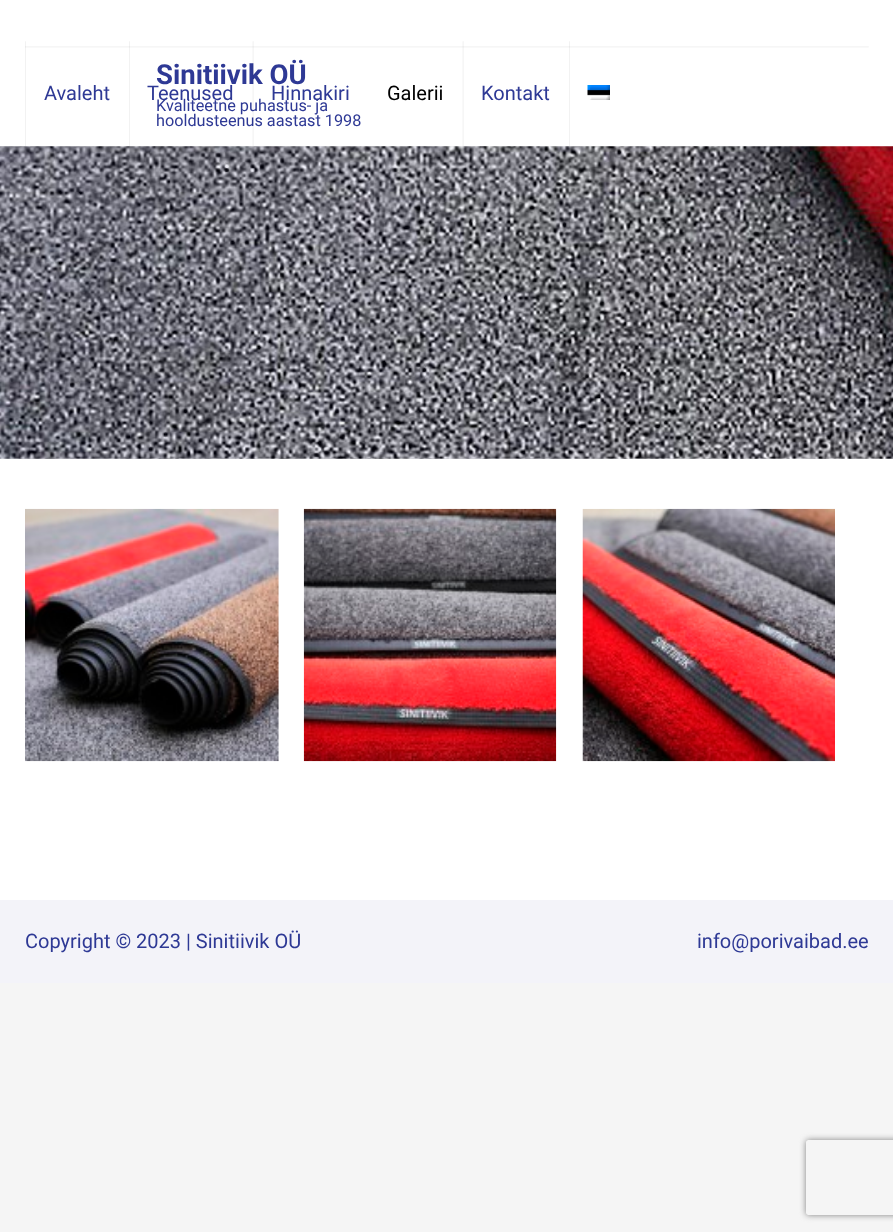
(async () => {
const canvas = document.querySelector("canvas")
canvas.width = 893
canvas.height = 1232
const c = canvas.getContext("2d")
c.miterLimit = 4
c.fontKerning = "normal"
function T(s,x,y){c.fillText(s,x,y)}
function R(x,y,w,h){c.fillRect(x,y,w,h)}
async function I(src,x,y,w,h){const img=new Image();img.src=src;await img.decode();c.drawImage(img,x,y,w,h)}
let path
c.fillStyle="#f5f5f5"
R(0,0,893,1232)
c.fillStyle="#fff"
R(0,0,893,900)
await I("1.png",25,46,844,2)
c.font="bold 27.5px Roboto"
c.fillStyle="#2e3995"
T("Sinitiivik OÜ",156,84)
c.font="16.25px Roboto"
T("Kvaliteetne puhastus- ja",156,111)
T("hooldusteenus aastast 1998",156,126)
await I("2.png",25,41,1,105)
c.font="20px Roboto"
T("Avaleht",44,100)
await I("2.png",129,41,1,105)
T("Teenused",147,100)
await I("3.png",252,41,2,105)
T("Hinnakiri",271,100)
c.fillStyle="#000"
T("Galerii",387,100)
await I("4.png",462,41,2,105)
c.fillStyle="#2e3995"
T("Kontakt",481,100)
await I("2.png",569,41,1,105)
await I("5.png",587,85,23,15)
await I("6.png",0,146,893,313)
await I("7.png",25,508,254,254)
await I("8.png",303,508,254,254)
await I("9.png",582,508,253,254)
c.fillStyle="#f3f3f9"
R(0,900,893,83)
c.fillStyle="#2e3995"
T("Copyright © 2023 | Sinitiivik OÜ",25,948)
T("info@porivaibad.ee",697,948)
c.save()
path = new Path2D("M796 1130h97v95h-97zm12.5 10h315c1.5 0 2.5 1 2.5 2.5v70c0 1.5-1 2.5-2.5 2.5h-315c-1.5 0-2.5-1-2.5-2.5v-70c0-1.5 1-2.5 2.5-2.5z")
c.clip(path,"evenodd")
c.fillStyle="#808080"
c.filter="blur(3px)"
c.beginPath()
c.roundRect(806,1140,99,75,2.5)
c.fill()
c.filter="none"
c.restore()
})()
